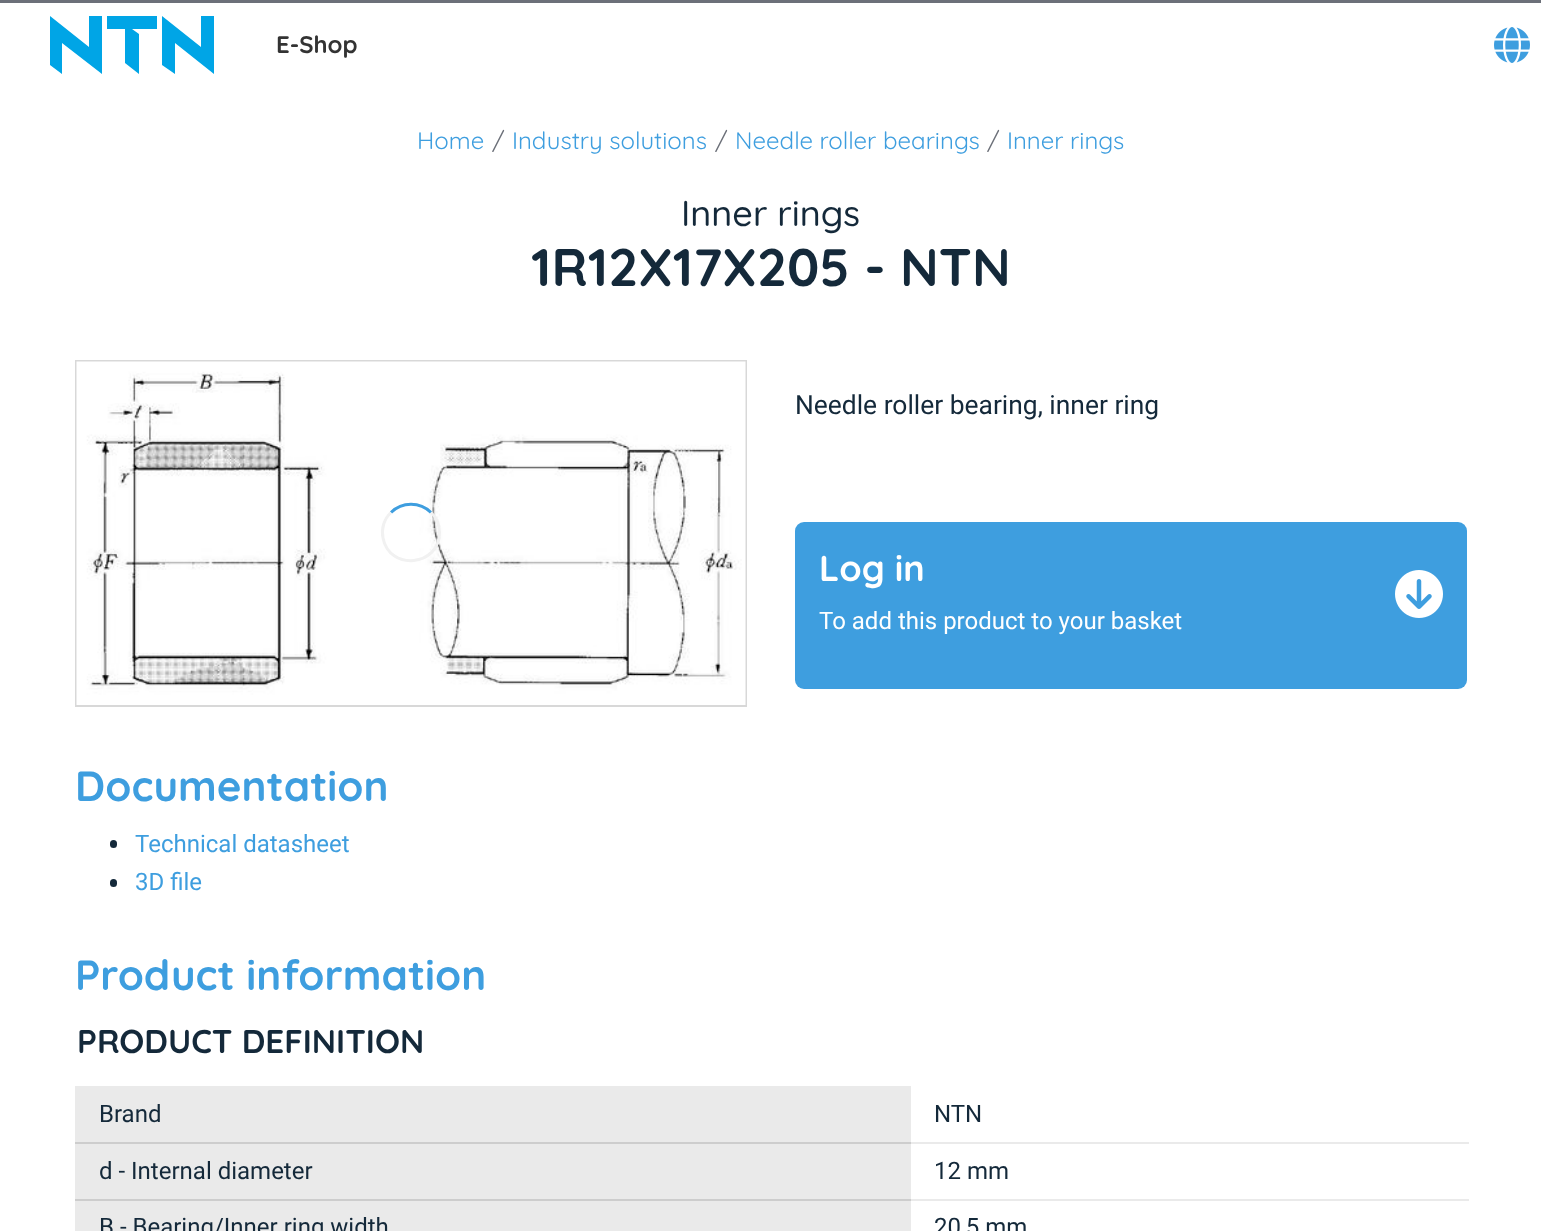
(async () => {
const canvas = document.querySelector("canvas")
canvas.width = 1541
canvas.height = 1231
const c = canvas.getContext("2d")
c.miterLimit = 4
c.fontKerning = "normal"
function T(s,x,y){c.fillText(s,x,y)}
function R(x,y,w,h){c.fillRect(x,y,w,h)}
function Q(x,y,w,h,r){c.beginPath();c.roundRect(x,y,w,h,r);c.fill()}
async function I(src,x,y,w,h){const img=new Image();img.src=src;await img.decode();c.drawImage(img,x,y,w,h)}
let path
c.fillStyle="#fff"
R(0,0,1541,1231)
c.fillStyle="#6c7079"
R(0,0,1541,3)
c.fillStyle="#00a5e6"
path = new Path2D("M102 74l-40-31v31l-12-9v-49l39 31v-31h13z")
c.fill(path)
path = new Path2D("M157 16h-50v13h18v34l14 11v-40l-7-5h25z")
c.fill(path)
path = new Path2D("M214 74l-39-31v31l-13-9v-49l39 31v-31h13z")
c.fill(path)
c.font="bold 24px Quicksand"
c.fillStyle="#333"
T("E-Shop",276,53)
await I("1.png",1494,27,36,36)
c.font="24px Quicksand"
c.fillStyle="#3e9edf"
T("Home",417,149)
c.fillStyle="#6c7079"
T("/",492,149)
c.fillStyle="#3e9edf"
T("Industry solutions",512,149)
c.fillStyle="#6c7079"
T("/",715,149)
c.fillStyle="#3e9edf"
T("Needle roller bearings",735,149)
c.fillStyle="#6c7079"
T("/",987,149)
c.fillStyle="#3e9edf"
T("Inner rings",1007,149)
c.font="500 36px Quicksand"
c.fillStyle="#14293a"
T("Inner rings",681,226)
c.font="bold 52.75px Quicksand"
T("1R12X17X205 - NTN",531,286)
c.strokeStyle="#d8d8d8"
c.lineWidth=2
c.strokeRect(76,361,670,345)
await I("2.png",76,361,670,344)
path = new Path2D("M391 512.5c11-11 29-11 40 0")
c.strokeStyle="#3e9edf"
c.lineWidth=3
c.stroke(path)
path = new Path2D("M431 512.5c5.5 5 8.5 12.5 8.5 20c0 34-50 39-56.5 5.5c-2-9 1-19 8-25.5")
c.strokeStyle="#f1f1f1"
c.stroke(path)
c.font="26.4px Roboto"
T("Needle roller bearing, inner ring",795,414)
c.fillStyle="#3e9edf"
Q(795,522,672,167,9)
c.font="bold 36px Quicksand"
c.fillStyle="#fff"
T("Log in",819,581)
c.font="24px Roboto"
T("To add this product to your basket",819,629)
await I("3.png",1395,570,48,48)
c.font="bold 42px Quicksand"
c.fillStyle="#3e9edf"
T("Documentation",75,801)
c.fillStyle="#14293a"
Q(110,840,7,8,3.5)
c.font="24px Roboto"
c.fillStyle="#3e9edf"
T("Technical datasheet",135,852)
c.fillStyle="#14293a"
Q(110,879,7,8,3.5)
c.fillStyle="#3e9edf"
T("3D file",135,890)
c.font="bold 42px Quicksand"
T("Product information",75,990)
c.font="bold 33px Quicksand"
c.fillStyle="#14293a"
T("PRODUCT DEFINITION",77,1053)
c.fillStyle="#eaeaea"
R(75,1086,836,56)
R(909,1142,560,2)
c.fillStyle="#cdcdcd"
R(75,1142,836,2)
c.font="24px Roboto"
c.fillStyle="#14293a"
T("Brand",99,1122)
T("NTN",934,1122)
c.fillStyle="#eaeaea"
R(75,1144,836,55)
R(909,1199,560,2)
c.fillStyle="#cdcdcd"
R(75,1199,836,2)
c.fillStyle="#14293a"
T("d - Internal diameter",99,1179)
T("12 mm",934,1179)
c.fillStyle="#eaeaea"
R(75,1201,836,30)
c.fillStyle="#14293a"
T("B - Bearing/Inner ring width",99,1235)
T("20,5 mm",934,1235)
})()
